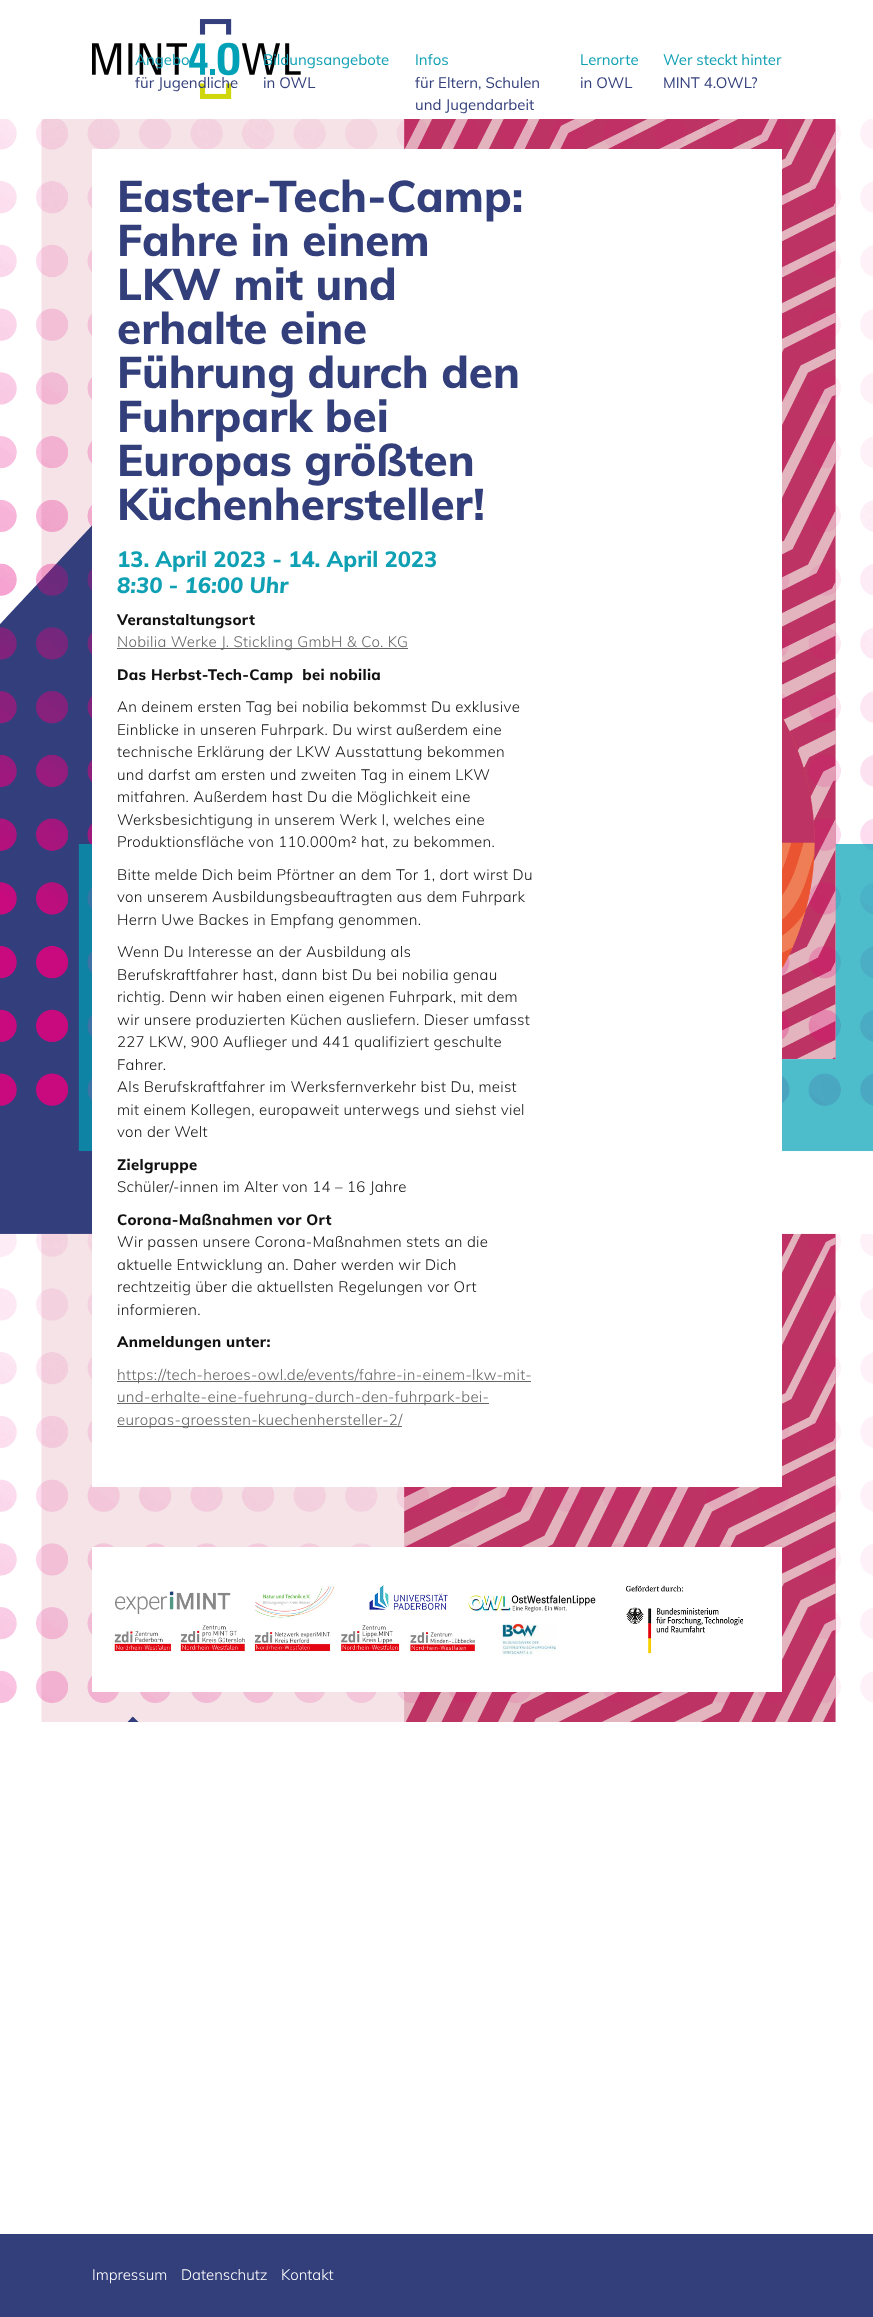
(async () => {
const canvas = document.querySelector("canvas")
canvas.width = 873
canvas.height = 2317
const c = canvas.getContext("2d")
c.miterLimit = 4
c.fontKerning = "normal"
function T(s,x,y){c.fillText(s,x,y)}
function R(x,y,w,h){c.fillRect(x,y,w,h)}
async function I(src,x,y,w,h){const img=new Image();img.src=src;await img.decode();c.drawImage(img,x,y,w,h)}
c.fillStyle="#fff"
R(0,0,873,2317)
await I("1.png",0,119,873,1603)
await I("2.png",92,19,209,80)
c.font="15px Mulish"
c.fillStyle="#10a0b4"
T("Angebo",135,65)
c.fillStyle="#333f7b"
T("für Jugendliche",135,88)
c.fillStyle="#10a0b4"
T("Bildungsangebote",263,65)
c.fillStyle="#333f7b"
T("in OWL",263,88)
c.fillStyle="#10a0b4"
T("Infos",415,65)
c.fillStyle="#333f7b"
T("für Eltern, Schulen",415,88)
T("und Jugendarbeit",415,110)
c.fillStyle="#10a0b4"
T("Lernorte",580,65)
c.fillStyle="#333f7b"
T("in OWL",580,88)
c.fillStyle="#10a0b4"
T("Wer steckt hinter",663,65)
c.fillStyle="#333f7b"
T("MINT 4.OWL?",663,88)
c.fillStyle="#fff"
R(92,149,690,1338)
c.font="800 44px Mulish"
c.fillStyle="#333f7b"
T("Easter-Tech-Camp:",117,212)
T("Fahre in einem",117,256)
T("LKW mit und",117,300)
T("erhalte eine",117,344)
T("Führung durch den",117,388)
T("Fuhrpark bei",117,432)
T("Europas größten",117,476)
T("Küchenhersteller!",117,520)
c.font="800 22px Mulish"
c.fillStyle="#10a0b4"
T("13. April 2023 - 14. April 2023",117,567)
c.font="italic 800 22px Mulish"
T("8:30 - 16:00 Uhr",117,593)
c.letterSpacing="0.3px"
c.font="800 15px Mulish"
c.fillStyle="#111"
T("Veranstaltungsort",117,625)
c.fillStyle="#666"
R(117,648,291,1)
c.font="300 15px Mulish"
T("Nobilia Werke J. Stickling GmbH & Co. KG",117,647)
c.font="800 15px Mulish"
c.fillStyle="#111"
T("Das Herbst-Tech-Camp  bei nobilia",117,680)
c.font="300 15px Mulish"
T("An deinem ersten Tag bei nobilia bekommst Du exklusive",117,712)
T("Einblicke in unseren Fuhrpark. Du wirst außerdem eine",117,735)
T("technische Erklärung der LKW Ausstattung bekommen",117,757)
T("und darfst am ersten und zweiten Tag in einem LKW",117,780)
T("mitfahren. Außerdem hast Du die Möglichkeit eine",117,802)
T("Werksbesichtigung in unserem Werk I, welches eine",117,825)
T("Produktionsfläche von 110.000m² hat, zu bekommen.",117,847)
T("Bitte melde Dich beim Pförtner an dem Tor 1, dort wirst Du",117,880)
T("von unserem Ausbildungsbeauftragten aus dem Fuhrpark",117,902)
T("Herrn Uwe Backes in Empfang genommen.",117,925)
T("Wenn Du Interesse an der Ausbildung als",117,957)
T("Berufskraftfahrer hast, dann bist Du bei nobilia genau",117,980)
T("richtig. Denn wir haben einen eigenen Fuhrpark, mit dem",117,1002)
T("wir unsere produzierten Küchen ausliefern. Dieser umfasst",117,1025)
T("227 LKW, 900 Auflieger und 441 qualifiziert geschulte",117,1047)
T("Fahrer.",117,1070)
T("Als Berufskraftfahrer im Werksfernverkehr bist Du, meist",117,1092)
T("mit einem Kollegen, europaweit unterwegs und siehst viel",117,1115)
T("von der Welt",117,1137)
c.font="800 15px Mulish"
T("Zielgruppe",117,1170)
c.font="300 15px Mulish"
T("Schüler/-innen im Alter von 14 – 16 Jahre",117,1192)
c.font="800 15px Mulish"
T("Corona-Maßnahmen vor Ort",117,1225)
c.font="300 15px Mulish"
T("Wir passen unsere Corona-Maßnahmen stets an die",117,1247)
T("aktuelle Entwicklung an. Daher werden wir Dich",117,1270)
T("rechtzeitig über die aktuellsten Regelungen vor Ort",117,1292)
T("informieren.",117,1315)
c.font="800 15px Mulish"
T("Anmeldungen unter:",117,1347)
c.fillStyle="#666"
R(117,1381,414,1)
c.font="300 15px Mulish"
T("https://tech-heroes-owl.de/events/fahre-in-einem-lkw-mit-",117,1380)
R(117,1403,372,1)
T("und-erhalte-eine-fuehrung-durch-den-fuhrpark-bei-",117,1402)
R(117,1426,285,1)
T("europas-groessten-kuechenhersteller-2/",117,1425)
c.strokeStyle="#fff"
c.lineWidth=20
c.strokeRect(102,1557,670,125)
await I("3.png",112,1567,650,105)
c.fillStyle="#333f7b"
R(0,2234,873,83)
c.letterSpacing="0px"
c.fillStyle="#fff"
T("Impressum",92,2280)
T("Datenschutz",181,2280)
T("Kontakt",281,2280)
})()
